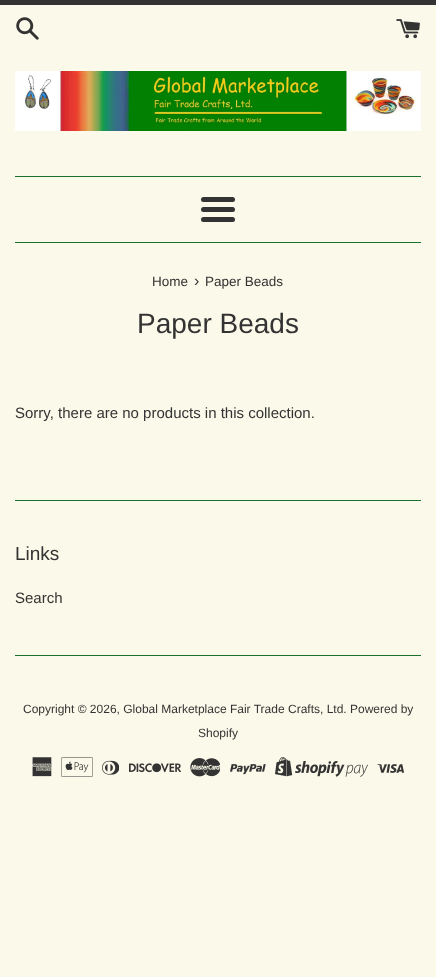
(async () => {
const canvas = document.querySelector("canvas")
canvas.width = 436
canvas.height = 977
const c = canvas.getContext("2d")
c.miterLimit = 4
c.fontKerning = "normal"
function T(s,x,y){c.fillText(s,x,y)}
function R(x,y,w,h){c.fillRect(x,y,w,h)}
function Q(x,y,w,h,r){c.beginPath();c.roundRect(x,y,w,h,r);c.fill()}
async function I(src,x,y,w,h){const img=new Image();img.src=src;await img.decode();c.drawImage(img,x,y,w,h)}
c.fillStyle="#fbf9e9"
R(0,0,436,977)
c.fillStyle="#333"
R(0,0,436,5)
await I("1.png",16,17,23,23)
await I("2.png",396,19,24,20)
await I("3.png",15,71,406,60)
c.fillStyle="#18722d"
R(15,176,406,1)
c.fillStyle="#333"
Q(201,197,34,5,2.5)
Q(201,207,34,5,2.5)
Q(201,217,34,5,2.5)
c.fillStyle="#18722d"
R(15,242,406,1)
c.font="13.5px Liberation Sans"
c.fillStyle="#333"
T("Home",152,286)
c.font="16px Liberation Sans"
T("›",194,286)
c.font="13.5px Liberation Sans"
T("Paper Beads",205,286)
c.font="28px Liberation Sans"
T("Paper Beads",137,333)
c.font="15px Liberation Sans"
T("Sorry, there are no products in this collection.",15,418)
c.fillStyle="#18722d"
R(15,500,406,1)
c.font="19px Liberation Sans"
c.fillStyle="#333"
T("Links",15,560)
c.font="15px Liberation Sans"
T("Search",15,603)
c.fillStyle="#18722d"
R(15,655,406,1)
c.font="12px Liberation Sans"
c.fillStyle="#333"
T("Copyright © 2026, Global Marketplace Fair Trade Crafts, Ltd. Powered by",23,713)
T("Shopify",198,737)
await I("4.png",32,757,20,20)
await I("5.png",61,757,32,20)
await I("6.png",102,760,17,15)
await I("7.png",129,763,52,10)
await I("8.png",190,758,30,19)
await I("9.png",230,764,36,11)
await I("10.png",275,757,93,20)
await I("11.png",377,764,27,9)
})()
